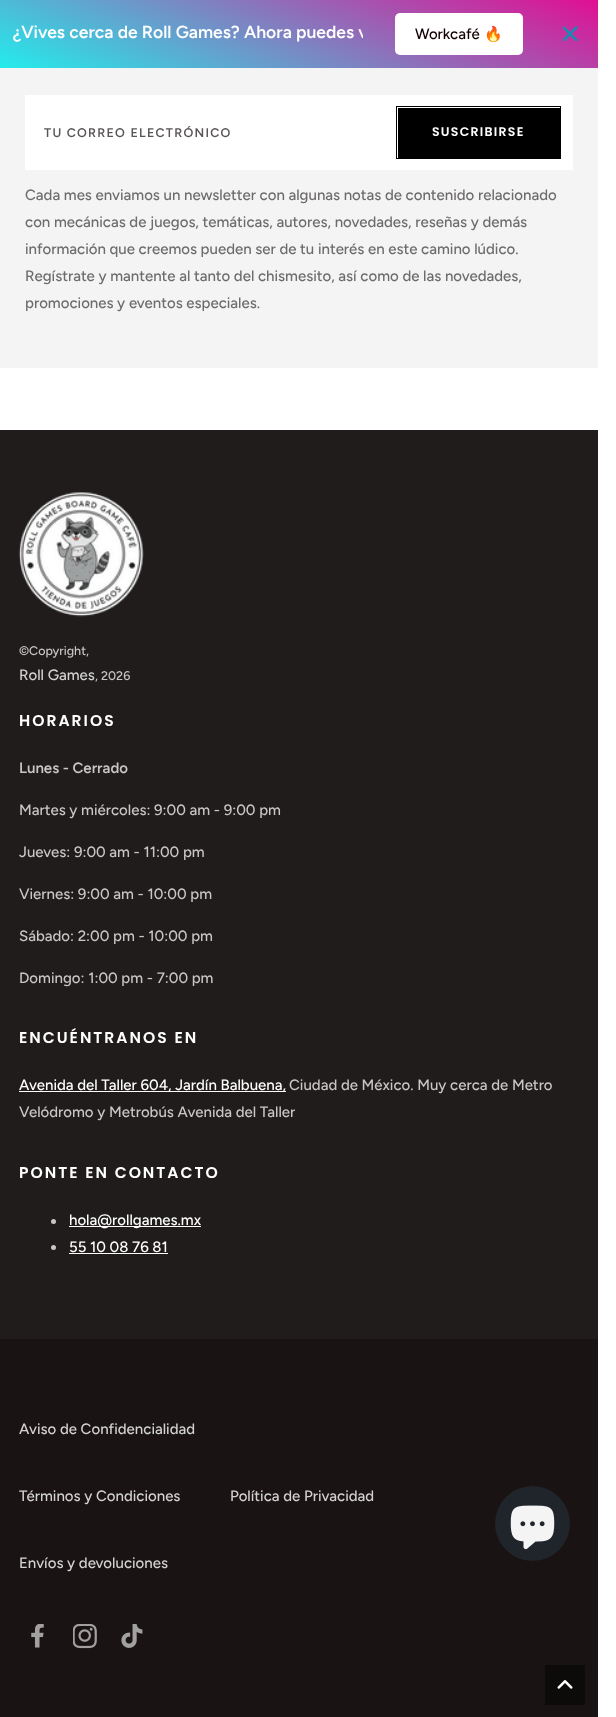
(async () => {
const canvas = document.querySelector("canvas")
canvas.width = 616
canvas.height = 1717
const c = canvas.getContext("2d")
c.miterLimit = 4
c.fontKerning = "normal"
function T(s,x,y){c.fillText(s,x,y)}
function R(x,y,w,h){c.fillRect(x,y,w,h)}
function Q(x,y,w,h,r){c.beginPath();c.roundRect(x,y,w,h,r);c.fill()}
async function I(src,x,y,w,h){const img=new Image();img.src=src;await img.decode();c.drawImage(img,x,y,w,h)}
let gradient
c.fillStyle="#fff"
R(0,0,616,1717)
gradient = c.createLinearGradient(245,167,352,-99)
gradient.addColorStop(0,"#23ecec")
gradient.addColorStop(1,"#e10f93")
c.fillStyle = gradient
R(0,0,598,68)
c.save()
c.beginPath()
c.rect(13,24,350,20)
c.clip()
c.font="600 17.5px Figtree"
c.fillStyle="#fff"
T("¿Vives cerca de Roll Games? Ahora puedes v",13,38)
c.restore()
c.fillStyle="#fff"
Q(395,13,128,42,5)
c.font="500 15px Figtree"
c.fillStyle="#120000"
T("Workcafé",415,39)
c.font="15px Noto Color Emoji"
T("🔥",484,39)
await I("1.png",563,26,15,15)
c.fillStyle="#f4f4f4"
R(0,68,598,300)
c.fillStyle="#fff"
R(25,95,548,75)
c.letterSpacing="1.25px"
c.font="600 12.5px Figtree"
c.fillStyle="#595555"
T("TU CORREO ELECTRÓNICO",44,137)
c.strokeStyle="#000"
c.strokeRect(396.5,106.5,164,52)
c.fillStyle="#000"
R(398,108,162,50)
c.font="600 12.5px Poppins"
c.fillStyle="#fff"
T("SUSCRIBIRSE",432,136)
c.letterSpacing="0px"
c.font="500 15px Figtree"
c.fillStyle="#6d6b6b"
T("Cada mes enviamos un newsletter con algunas notas de contenido relacionado",25,200)
T("con mecánicas de juegos, temáticas, autores, novedades, reseñas y demás",25,227)
T("información que creemos pueden ser de tu interés en este camino lúdico.",25,254)
T("Regístrate y mantente al tanto del chismesito, así como de las novedades,",25,281)
T("promociones y eventos especiales.",25,308)
c.fillStyle="#211c1c"
R(0,430,598,909)
await I("2.png",18,492,126,125)
c.font="500 12.5px Figtree"
c.fillStyle="#c8c6c6"
T("©Copyright,",19,655)
c.font="500 15px Figtree"
c.fillStyle="#d3d2d2"
T("Roll Games",19,680)
c.font="500 12.5px Figtree"
c.fillStyle="#c8c6c6"
T(", 2026",95,680)
c.letterSpacing="2px"
c.font="600 15.6px Poppins"
c.fillStyle="#fff"
T("HORARIOS",19,726)
c.letterSpacing="0px"
c.font="600 15px Figtree"
c.fillStyle="#c8c6c6"
T("Lunes - Cerrado",19,773)
c.font="500 15px Figtree"
T("Martes y miércoles: 9:00 am - 9:00 pm",19,815)
T("Jueves: 9:00 am - 11:00 pm",19,857)
T("Viernes: 9:00 am - 10:00 pm",19,899)
T("Sábado: 2:00 pm - 10:00 pm",19,941)
T("Domingo: 1:00 pm - 7:00 pm",19,983)
c.letterSpacing="2px"
c.font="600 15.6px Poppins"
c.fillStyle="#fff"
T("ENCUÉNTRANOS EN",19,1043)
R(19,1091,267,1)
c.letterSpacing="0px"
c.font="500 15px Figtree"
T("Avenida del Taller 604, Jardín Balbuena,",19,1090)
c.fillStyle="#c8c6c6"
T("Ciudad de México. Muy cerca de Metro",289,1090)
T("Velódromo y Metrobús Avenida del Taller",19,1117)
c.letterSpacing="2px"
c.font="600 15.6px Poppins"
c.fillStyle="#fff"
T("PONTE EN CONTACTO",19,1178)
c.fillStyle="#c8c6c6"
c.beginPath()
c.arc(53.5,1221.5,2.5,0,7)
c.fill()
c.fillStyle="#fff"
R(69,1226,132,1)
c.letterSpacing="0px"
c.font="500 15px Figtree"
T("hola@rollgames.mx",69,1225)
c.fillStyle="#c8c6c6"
c.beginPath()
c.arc(53.5,1247.5,2.5,0,7)
c.fill()
c.fillStyle="#fff"
T("55 10 08 76 81",69,1252)
R(69,1253,99,1)
c.fillStyle="#1a1313"
R(0,1339,598,378)
c.fillStyle="#d3d2d2"
T("Aviso de Confidencialidad",19,1434)
T("Términos y Condiciones",19,1501)
T("Política de Privacidad",230,1501)
T("Envíos y devoluciones",19,1568)
await I("3.png",31,1624,13,24)
await I("4.png",73,1624,24,25)
await I("5.png",121,1624,22,24)
c.fillStyle="#20252b"
c.beginPath()
c.arc(532.5,1523.5,37.5,0,7)
c.fill()
await I("6.png",510,1505,45,45)
c.fillStyle="#0d0a0a"
R(545,1665,40,40)
await I("7.png",557,1680,16,9)
})()
